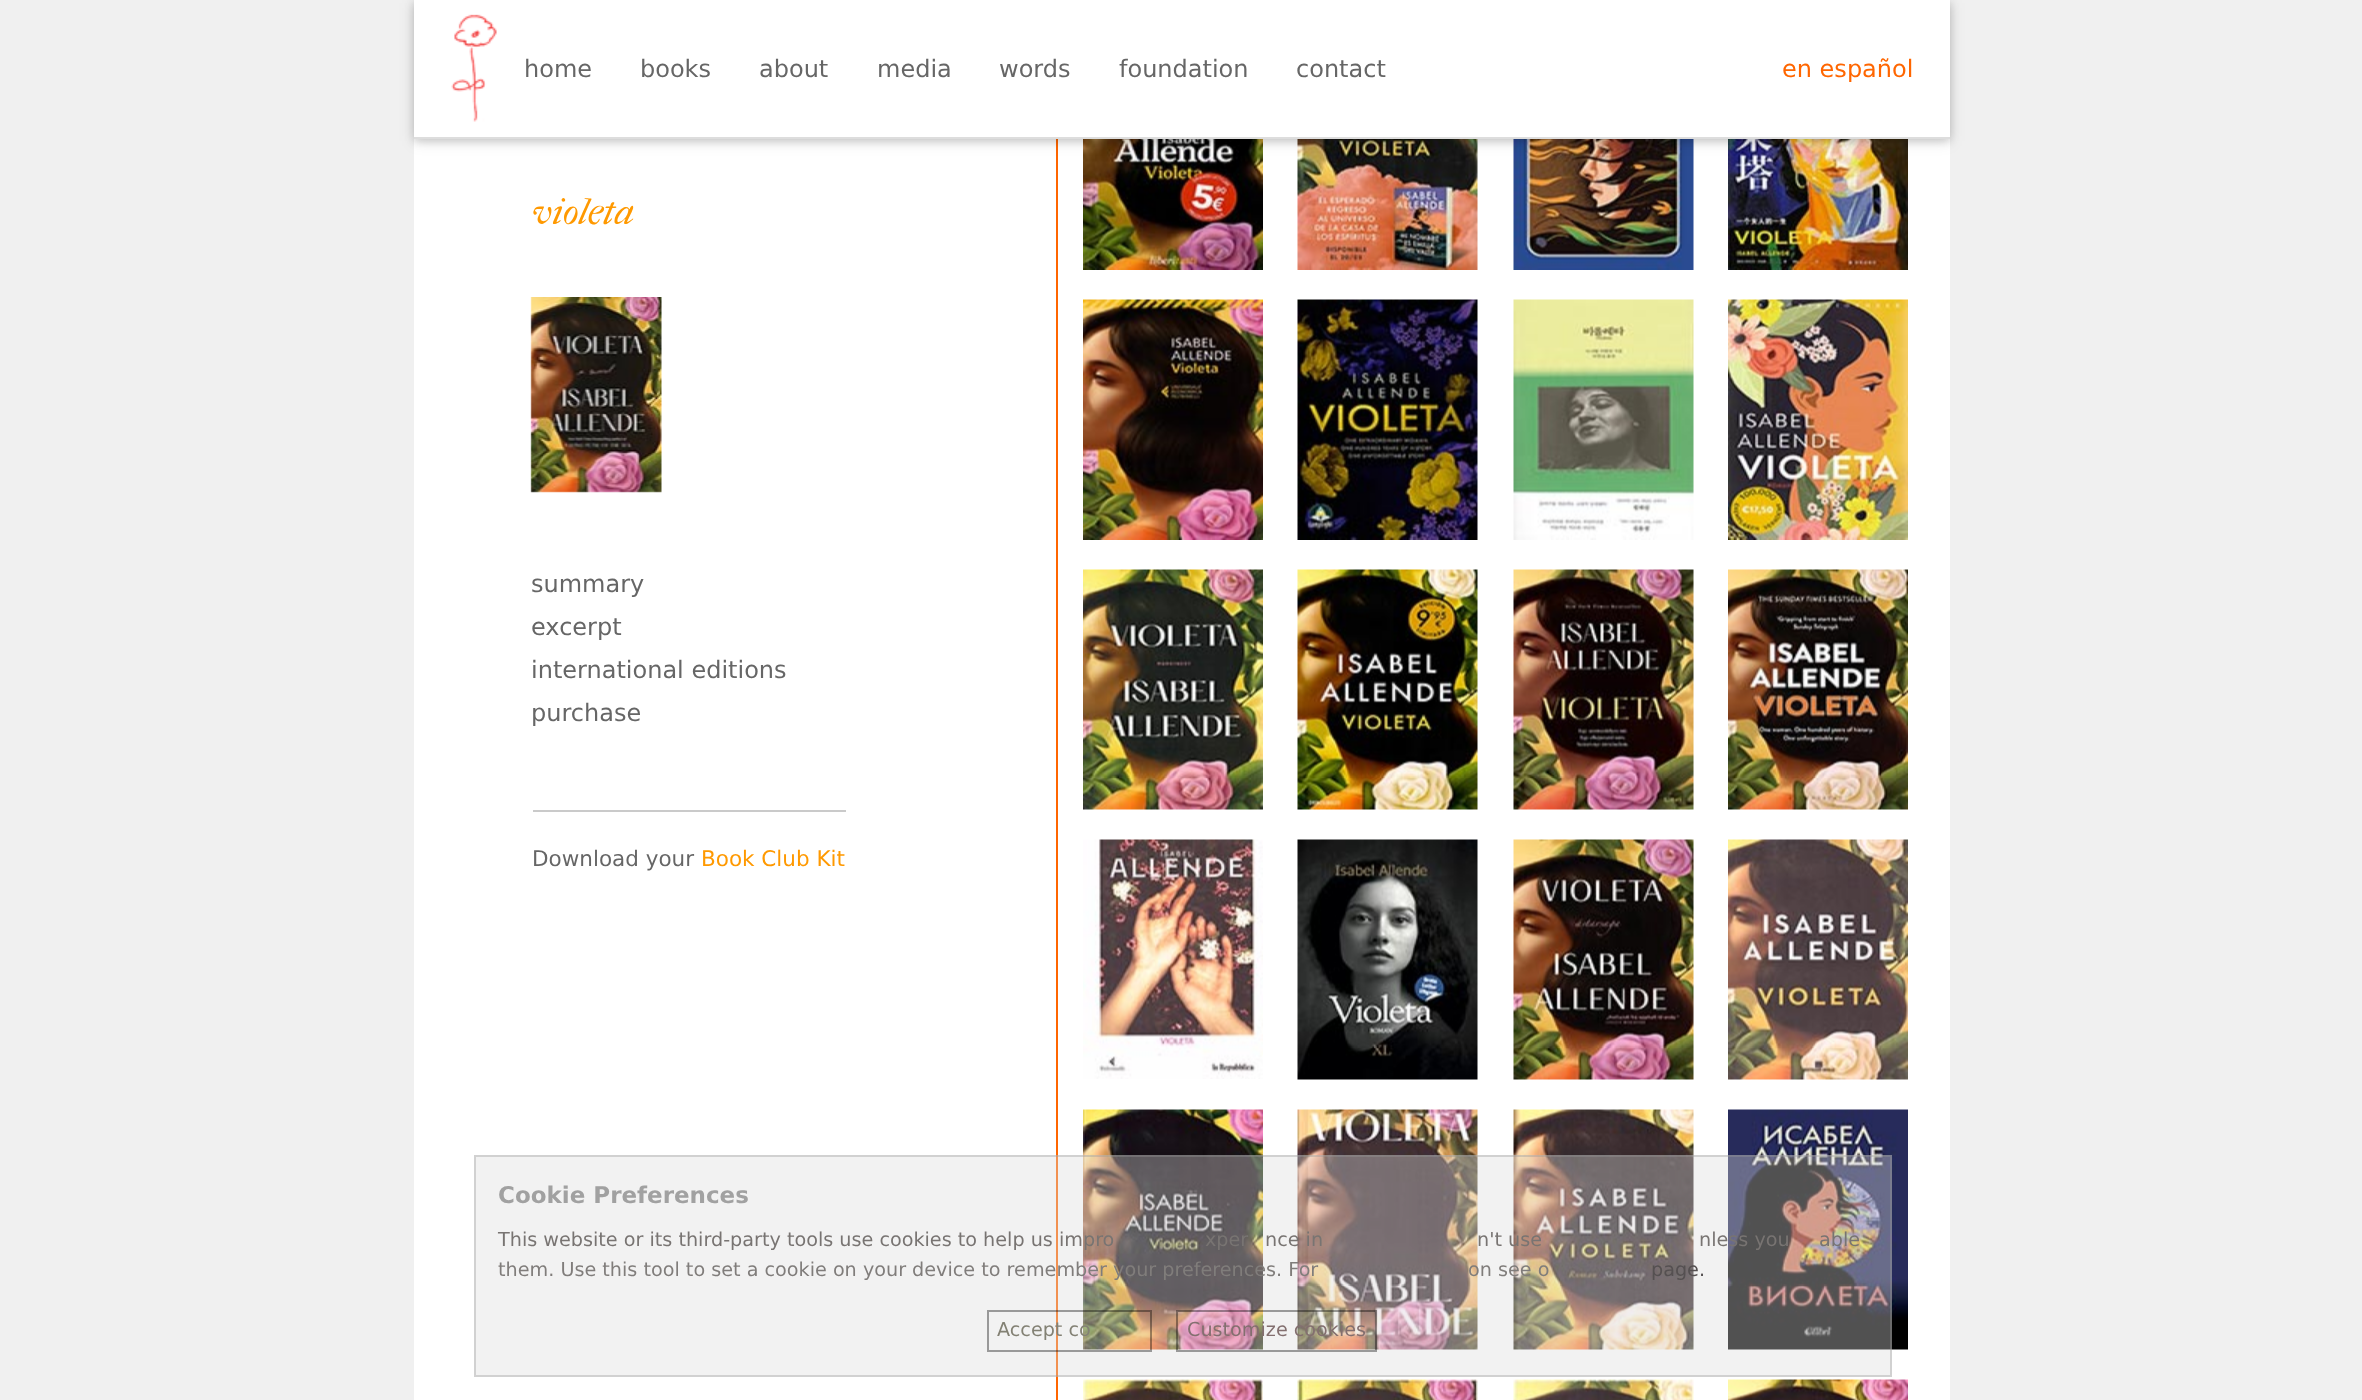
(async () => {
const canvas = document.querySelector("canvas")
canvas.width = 2362
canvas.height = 1400
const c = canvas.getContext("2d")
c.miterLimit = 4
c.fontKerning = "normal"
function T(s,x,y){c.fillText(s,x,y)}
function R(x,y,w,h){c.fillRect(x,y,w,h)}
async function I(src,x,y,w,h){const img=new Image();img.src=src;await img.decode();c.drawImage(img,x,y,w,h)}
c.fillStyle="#f0f0f0"
R(0,0,2362,1400)
c.fillStyle="#fff"
R(414,139,1536,1261)
c.fillStyle="#f60"
R(1056,139,2,1261)
await I("3.png",1083,139,180,131)
await I("4.png",1297,139,181,131)
await I("5.png",1513,139,181,131)
await I("6.png",1728,139,180,131)
c.fillStyle="#0000001f"
c.filter="blur(7.5px)"
c.beginPath()
c.rect(414,3,1536,138)
c.fill()
c.filter="none"
c.fillStyle="#00000029"
c.filter="blur(4px)"
c.beginPath()
c.rect(414,3,1536,138)
c.fill()
c.filter="none"
c.fillStyle="#fff"
R(414,0,1536,137)
c.fillStyle="#ddd"
R(414,137,1536,2)
await I("1.png",451,14,46,108)
c.font="24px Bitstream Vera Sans"
c.fillStyle="#666"
T("home",524,77)
T("books",640,77)
T("about",759,77)
T("media",877,77)
T("words",999,77)
T("foundation",1119,77)
T("contact",1296,77)
c.fillStyle="#f60"
T("en español",1782,77)
c.font="italic 37.5px IM FELL French Canon"
c.fillStyle="#f90"
T("violeta",532,224)
await I("2.png",530,297,132,196)
c.font="24px Bitstream Vera Sans"
c.fillStyle="#666"
T("summary",531,592)
T("excerpt",531,635)
T("international editions",531,678)
T("purchase",531,721)
c.fillStyle="#cacaca"
R(533,810,313,2)
c.font="21.5px Bitstream Vera Sans"
c.fillStyle="#666"
T("Download your",532,866)
c.fillStyle="#f90"
T("Book Club Kit",701,866)
await I("7.png",1083,299,180,241)
await I("8.png",1297,299,181,241)
await I("9.png",1513,299,181,241)
await I("10.png",1728,299,180,241)
await I("11.png",1083,569,180,241)
await I("12.png",1297,569,181,241)
await I("13.png",1513,569,181,241)
await I("14.png",1728,569,180,241)
await I("15.png",1083,839,180,240)
await I("16.png",1297,839,181,241)
await I("17.png",1513,839,181,241)
await I("18.png",1728,839,180,241)
await I("19.png",1083,1109,180,241)
await I("20.png",1297,1109,181,241)
await I("21.png",1513,1109,181,241)
await I("22.png",1728,1109,180,241)
await I("23.png",1083,1379,180,21)
await I("24.png",1297,1379,181,21)
await I("25.png",1513,1379,181,21)
await I("26.png",1728,1379,180,21)
c.fillStyle="#dddddd5e"
R(474,1155,1418,222)
c.strokeStyle="#9999995e"
c.lineWidth=2
c.strokeRect(475,1156,1416,220)
c.font="bold 23px Bitstream Vera Sans"
c.fillStyle="#a1a1a1"
T("Cookie Preferences",498,1203)
c.font="19.2px Bitstream Vera Sans"
c.fillStyle="#787472"
T("This website or its third-party tools use cookies to help us impro",498,1246)
T("xper",1205,1246)
T("nce in",1265,1246)
T("n't use",1477,1246)
T("nless you",1699,1246)
T("able",1819,1246)
c.fillStyle="#807d7b"
T("them. Use this tool to set a cookie on your device to remember your preferences. For",498,1276)
T("on see o",1468,1276)
c.fillStyle="#555051"
T("page.",1651,1276)
c.strokeStyle="#0000005e"
c.strokeRect(988,1311,163,40)
c.fillStyle="#838174"
T("Accept co",997,1336)
c.strokeRect(1177,1311,199,40)
c.fillStyle="#836f6f"
T("Customize cookies",1187,1336)
})()
